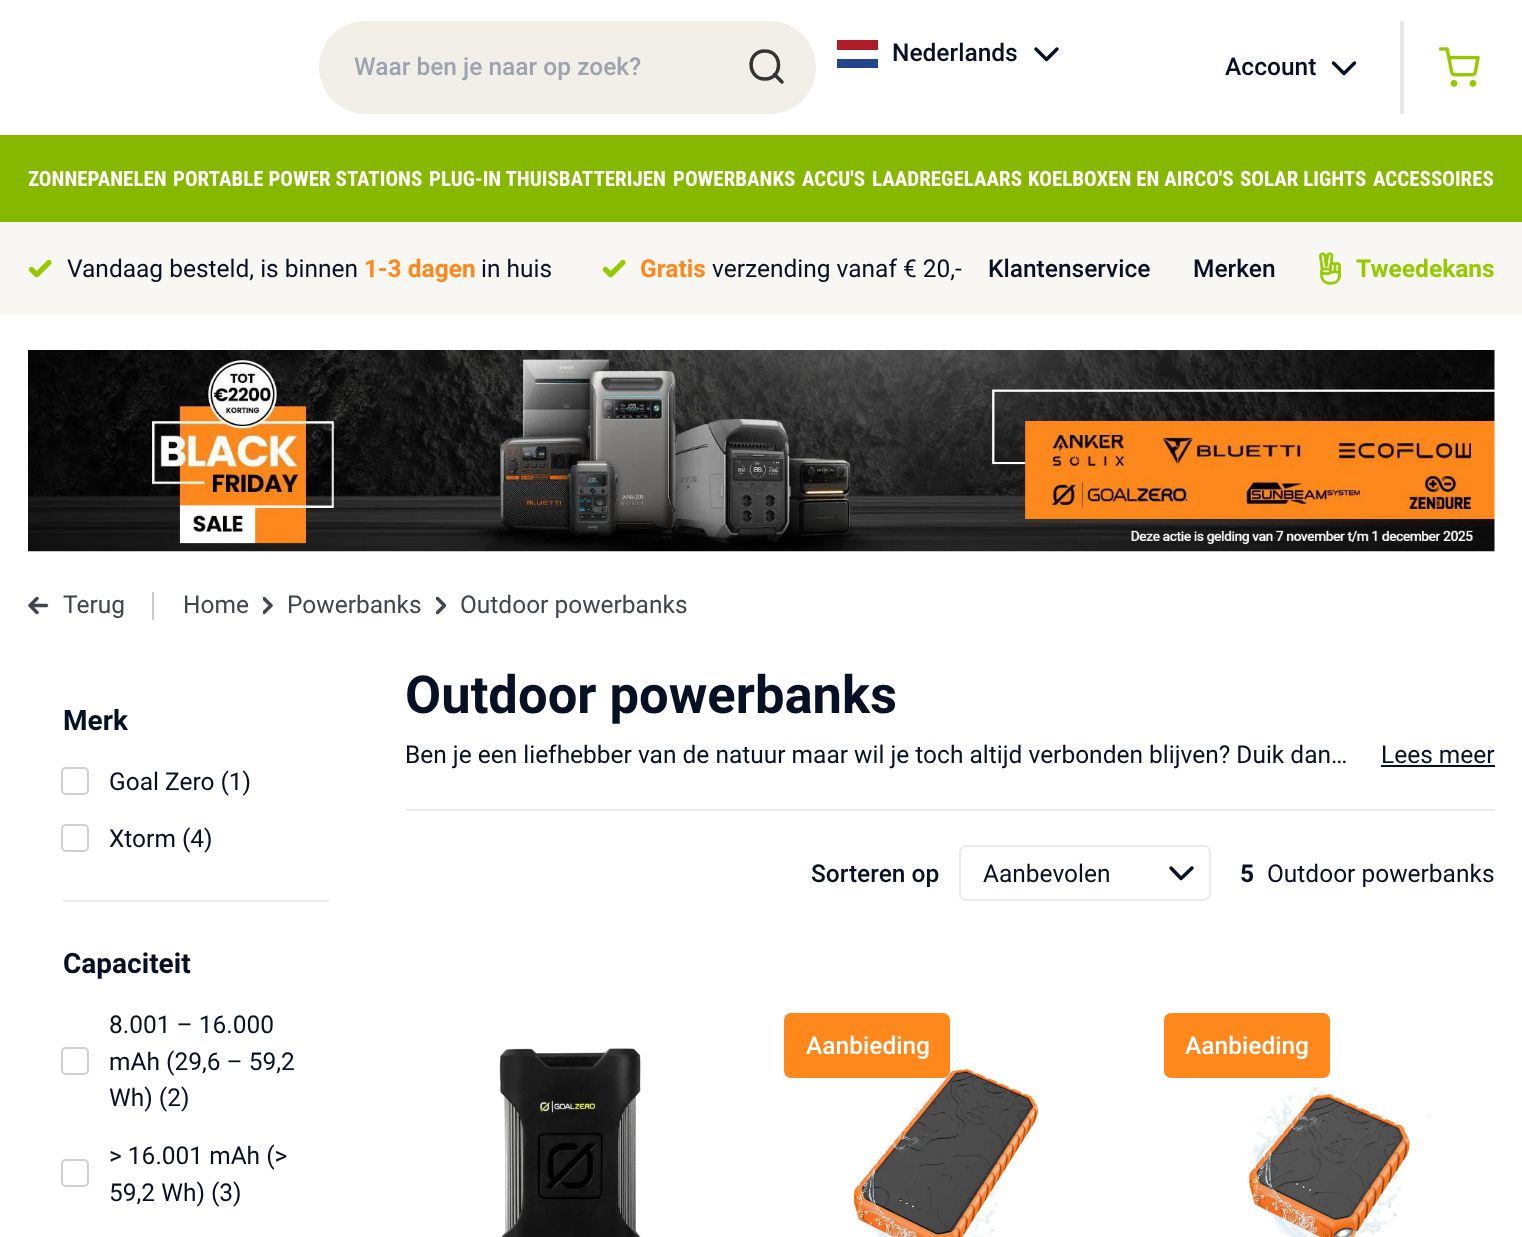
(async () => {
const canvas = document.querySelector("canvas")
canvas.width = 1522
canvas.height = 1237
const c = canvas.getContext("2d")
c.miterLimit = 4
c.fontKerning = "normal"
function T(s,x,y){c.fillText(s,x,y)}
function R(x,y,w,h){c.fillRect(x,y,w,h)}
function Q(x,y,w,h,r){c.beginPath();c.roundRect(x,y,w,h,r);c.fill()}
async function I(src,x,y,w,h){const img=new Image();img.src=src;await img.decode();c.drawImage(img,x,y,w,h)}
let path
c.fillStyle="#fff"
R(0,0,1522,1237)
c.fillStyle="#f1efe7"
Q(319,21,497,93,46.5)
c.font="500 24.5px Roboto"
c.fillStyle="#9ca3af"
T("Waar ben je naar op zoek?",354,75)
path = new Path2D("M765 79c18 0 18-28 0-28c-18.5-.5-18.5 28 0 28zm17 3l-7.5-7.5")
c.strokeStyle="#333"
c.lineWidth=3.5
c.lineCap="round"
c.lineJoin="round"
c.stroke(path)
c.fillStyle="#21468b"
R(837,59,41,9)
c.fillStyle="#ae1c28"
R(837,40,41,10)
c.fillStyle="#081123"
T("Nederlands",892,61)
path = new Path2D("M1036 49l10.5 10.5l10.5-10.5")
c.strokeStyle="#081123"
c.stroke(path)
T("Account",1225,75)
path = new Path2D("M1333.5 63l10.5 10.5l10.5-10.5")
c.stroke(path)
c.fillStyle="#e8e8e6"
R(1400,21,4,93)
await I("1.png",1439,47,41,40)
c.fillStyle="#87b800"
R(0,135,1522,87)
c.font="bold 21px Roboto Condensed"
c.fillStyle="#fff"
T("ZONNEPANELEN",28,186)
T("PORTABLE POWER STATIONS",173,186)
T("PLUG-IN THUISBATTERIJEN",429,186)
T("POWERBANKS",673,186)
T("ACCU'S",802,186)
T("LAADREGELAARS",872,186)
T("KOELBOXEN EN AIRCO'S",1028,186)
T("SOLAR LIGHTS",1240,186)
T("ACCESSOIRES",1373,186)
c.fillStyle="#f8f7f3"
R(0,222,1522,93)
await I("2.png",28,259,24,19)
c.font="24.5px Roboto"
c.fillStyle="#081123"
T("Vandaag besteld, is binnen",67,277)
c.font="bold 24.5px Roboto"
c.fillStyle="#ff881c"
T("1-3 dagen",364,277)
c.font="24.5px Roboto"
c.fillStyle="#081123"
T("in huis",481,277)
await I("2.png",602,259,24,19)
c.font="bold 24.5px Roboto"
c.fillStyle="#ff881c"
T("Gratis",640,277)
c.font="24.5px Roboto"
c.fillStyle="#081123"
T("verzending vanaf € 20,-",712,277)
c.font="500 24.5px Roboto"
T("Klantenservice",988,277)
T("Merken",1193,277)
await I("3.png",1319,252,22,33)
c.font="bold 24.5px Roboto"
c.fillStyle="#95ca00"
T("Tweedekans",1356,277)
await I("4.png",28,350,1467,202)
c.save()
c.beginPath()
c.rect(28,597,21,17)
c.clip()
path = new Path2D("M37 612.5l-7-7m0 0l7-7m-7 7h16.5")
c.strokeStyle="#40454f"
c.stroke(path)
c.restore()
c.font="24.5px Roboto"
c.fillStyle="#40454f"
T("Terug",63,613)
c.fillStyle="#ccc"
R(152,592,2,28)
c.fillStyle="#40454f"
T("Home",183,613)
c.save()
c.beginPath()
c.rect(263,597,10,17)
c.clip()
path = new Path2D("M264 612.5l7-7l-7-7")
c.strokeStyle="#40454f"
c.stroke(path)
c.restore()
T("Powerbanks",287,613)
c.save()
c.beginPath()
c.rect(436,597,10,17)
c.clip()
path = new Path2D("M437.5 612.5l7-7l-7-7")
c.strokeStyle="#40454f"
c.stroke(path)
c.restore()
T("Outdoor powerbanks",460,613)
c.font="bold 28px Roboto"
c.fillStyle="#081123"
T("Merk",63,730)
c.beginPath()
c.roundRect(62,768,26,26,4)
c.strokeStyle="#d1d0cc"
c.lineWidth=2
c.lineJoin="miter"
c.stroke()
c.font="24.5px Roboto"
T("Goal Zero (1)",109,790)
c.beginPath()
c.roundRect(62,825,26,26,4)
c.stroke()
T("Xtorm (4)",109,847)
c.fillStyle="#ebebe9"
R(63,900,266,2)
c.font="bold 28px Roboto"
c.fillStyle="#081123"
T("Capaciteit",63,973)
c.beginPath()
c.roundRect(62,1048,26,26,4)
c.stroke()
c.font="24.5px Roboto"
T("8.001 – 16.000",109,1033)
T("mAh (29,6 – 59,2",109,1070)
T("Wh) (2)",109,1106)
c.beginPath()
c.roundRect(62,1160,26,26,4)
c.stroke()
T("> 16.001 mAh (>",109,1164)
T("59,2 Wh) (3)",109,1201)
c.font="bold 52.5px Roboto"
T("Outdoor powerbanks",405,713)
c.fillStyle="#ebebe9"
R(406,809,1089,2)
c.font="24.5px Roboto"
c.fillStyle="#081123"
T("Ben je een liefhebber van de natuur maar wil je toch altijd verbonden blijven? Duik dan…",405,763)
T("Lees meer",1381,763)
R(1381,765,114,2)
c.font="500 24.5px Roboto"
T("Sorteren op",811,882)
path = new Path2D("M1171 868l10 10.5l11-10.5")
c.strokeStyle="#081123"
c.lineWidth=3.5
c.lineJoin="round"
c.stroke(path)
c.beginPath()
c.roundRect(960,846,250,54,6)
c.strokeStyle="#ebebe9"
c.lineWidth=2
c.lineJoin="miter"
c.stroke()
c.font="24.5px Roboto"
T("Aanbevolen",983,882)
c.font="bold 24.5px Roboto"
T("5",1240,882)
c.font="24.5px Roboto"
T("Outdoor powerbanks",1267,882)
await I("5.png",499,1047,143,190)
await I("6.png",853,1068,186,169)
c.fillStyle="#ff881c"
Q(784,1013,166,65,7)
c.font="500 24.5px Roboto"
c.fillStyle="#fff"
T("Aanbieding",806,1054)
c.fillStyle="#ff881c"
Q(1164,1013,166,65,7)
c.fillStyle="#fff"
T("Aanbieding",1185,1054)
await I("7.png",1247,1086,185,151)
})()
